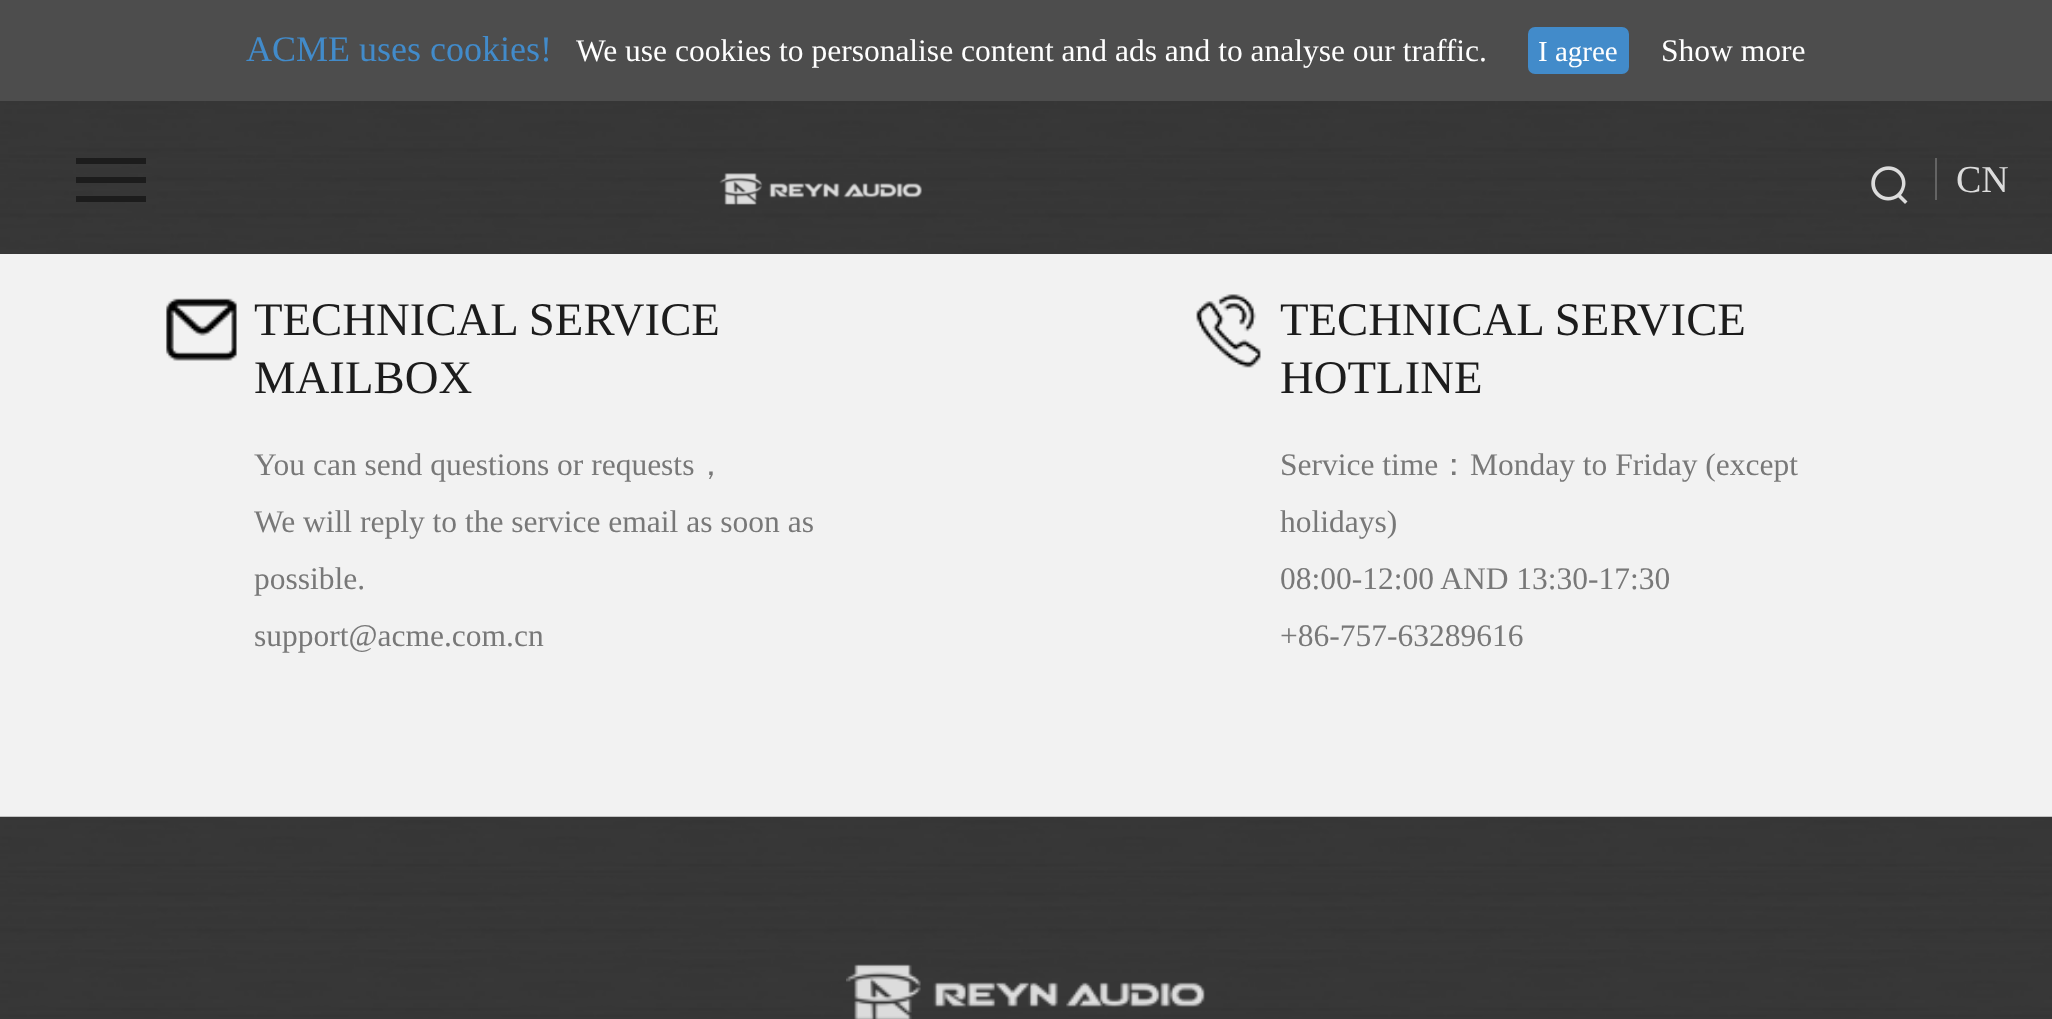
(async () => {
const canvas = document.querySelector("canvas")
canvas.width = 2052
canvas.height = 1019
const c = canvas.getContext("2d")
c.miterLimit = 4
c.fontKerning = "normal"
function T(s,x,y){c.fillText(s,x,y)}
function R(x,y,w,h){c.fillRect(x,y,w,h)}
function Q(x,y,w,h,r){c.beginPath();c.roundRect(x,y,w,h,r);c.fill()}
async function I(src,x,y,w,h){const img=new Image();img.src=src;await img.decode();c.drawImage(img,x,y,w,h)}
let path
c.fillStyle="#f2f2f2"
R(0,0,2052,1019)
c.fillStyle="#4d4d4d"
R(0,0,2052,101)
c.font="36px Liberation Serif"
c.fillStyle="#428bca"
T("ACME uses cookies!",246,61)
c.font="31.5px Liberation Serif"
c.fillStyle="#fff"
T("We use cookies to personalise content and ads and to analyse our traffic.",576,61)
c.fillStyle="#428bca"
Q(1528,27,101,47,7)
c.font="29px Liberation Serif"
c.fillStyle="#fff"
T("I agree",1538,61)
c.font="31.5px Liberation Serif"
T("Show more",1661,61)
await I("1.png",0,101,2052,153)
c.fillStyle="#1c1c1c"
path = new Path2D("M76 164v-6h70v6zm0 19v-6h70v6zm0 19v-6h70v6z")
c.fill(path)
await I("2.png",719,173,203,32)
await I("3.png",1871,166,37,38)
c.font="38px Liberation Serif"
c.fillStyle="#dcdcdc"
T("CN",1956,192)
c.fillStyle="#646464"
R(1935,158,2,42)
await I("4.png",166,298,71,63)
c.font="46.75px Liberation Serif"
c.fillStyle="#1c1c1c"
T("TECHNICAL SERVICE",254,335)
T("MAILBOX",254,393)
c.font="31.5px Liberation Serif"
c.fillStyle="#787878"
T("You can send questions or requests",254,475)
c.font="500 31.5px WenQuanYi Zen Hei"
T("，",695,475)
c.font="31.5px Liberation Serif"
T("We will reply to the service email as soon as",254,532)
T("possible.",254,589)
T("support@acme.com.cn",254,646)
await I("5.png",1196,294,65,74)
c.font="46.75px Liberation Serif"
c.fillStyle="#1c1c1c"
T("TECHNICAL SERVICE",1280,335)
T("HOTLINE",1280,393)
c.font="31.5px Liberation Serif"
c.fillStyle="#787878"
T("Service time",1280,475)
c.font="500 31.5px WenQuanYi Zen Hei"
T("：",1438,475)
c.font="31.5px Liberation Serif"
T("Monday to Friday (except",1470,475)
T("holidays)",1280,532)
T("08:00-12:00 AND 13:30-17:30",1280,589)
T("+86-757-63289616",1280,646)
await I("6.png",0,816,2052,203)
await I("7.png",846,964,359,55)
})()
